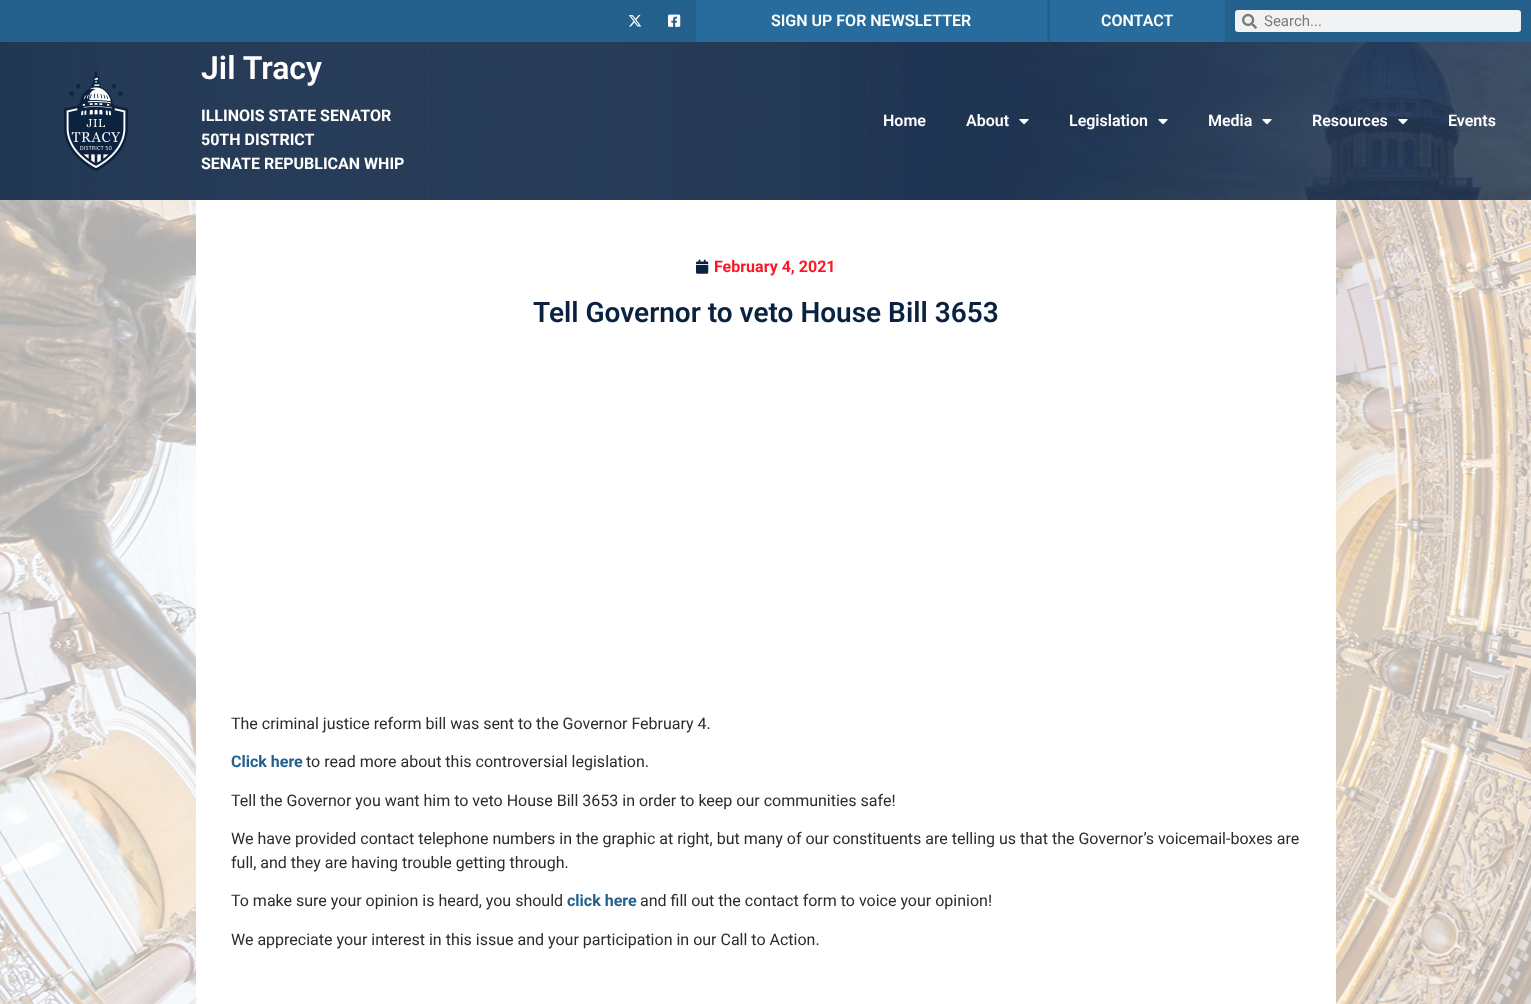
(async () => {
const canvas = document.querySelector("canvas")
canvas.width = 1531
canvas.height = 1004
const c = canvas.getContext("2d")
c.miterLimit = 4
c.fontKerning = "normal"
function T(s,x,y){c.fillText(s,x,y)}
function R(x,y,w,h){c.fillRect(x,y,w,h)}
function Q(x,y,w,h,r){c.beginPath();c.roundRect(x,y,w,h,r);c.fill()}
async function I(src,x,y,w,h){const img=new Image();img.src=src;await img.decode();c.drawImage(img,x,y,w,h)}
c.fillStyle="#fff"
R(0,0,1531,1004)
await I("1.png",0,200,1531,804)
c.fillStyle="#23608c"
R(0,0,1531,42)
await I("2.png",628,15,14,12)
await I("3.png",668,14,13,13)
c.fillStyle="#276c9d"
R(696,0,351,42)
c.font="600 16px Roboto"
c.fillStyle="#fff"
T("SIGN UP FOR NEWSLETTER",771,26)
c.fillStyle="#276c9d"
R(1050,0,175,42)
c.fillStyle="#fff"
T("CONTACT",1101,26)
c.fillStyle="#f1f2f3"
Q(1235,10,286,22,3)
await I("4.png",1242,13,15,16)
c.font="15px Roboto"
c.fillStyle="#7a7b7b"
T("Search...",1264,26)
await I("5.png",0,42,1531,158)
await I("6.png",64,71,64,100)
c.font="600 32px Roboto"
c.fillStyle="#fff"
T("Jil Tracy",201,79)
c.font="bold 16px Roboto"
T("ILLINOIS STATE SENATOR",201,121)
T("50TH DISTRICT",201,145)
T("SENATE REPUBLICAN WHIP",201,169)
c.font="600 16px Roboto"
T("Home",883,126)
T("About",966,126)
await I("7.png",1019,119,10,6)
T("Legislation",1069,126)
await I("8.png",1158,119,10,6)
T("Media",1208,126)
await I("9.png",1262,119,10,6)
T("Resources",1312,126)
await I("10.png",1398,119,10,6)
T("Events",1448,126)
R(196,200,1140,804)
await I("11.png",696,259,13,15)
c.font="bold 16px Roboto"
c.fillStyle="#fe1624"
T("February 4, 2021",714,272)
c.font="600 28px Roboto"
c.fillStyle="#0a2140"
T("Tell Governor to veto House Bill 3653",533,322)
c.font="16px Roboto"
c.fillStyle="#2b2b2b"
T("The criminal justice reform bill was sent to the Governor February 4.",231,729)
c.font="bold 16px Roboto"
c.fillStyle="#23608c"
T("Click here",231,767)
c.font="16px Roboto"
c.fillStyle="#2b2b2b"
T("to read more about this controversial legislation.",306,767)
T("Tell the Governor you want him to veto House Bill 3653 in order to keep our communities safe!",231,806)
T("We have provided contact telephone numbers in the graphic at right, but many of our constituents are telling us that the Governor’s voicemail-boxes are",231,844)
T("full, and they are having trouble getting through.",231,868)
T("To make sure your opinion is heard, you should",231,906)
c.font="bold 16px Roboto"
c.fillStyle="#23608c"
T("click here",567,906)
c.font="16px Roboto"
c.fillStyle="#2b2b2b"
T("and fill out the contact form to voice your opinion!",640,906)
T("We appreciate your interest in this issue and your participation in our Call to Action.",231,945)
})()
